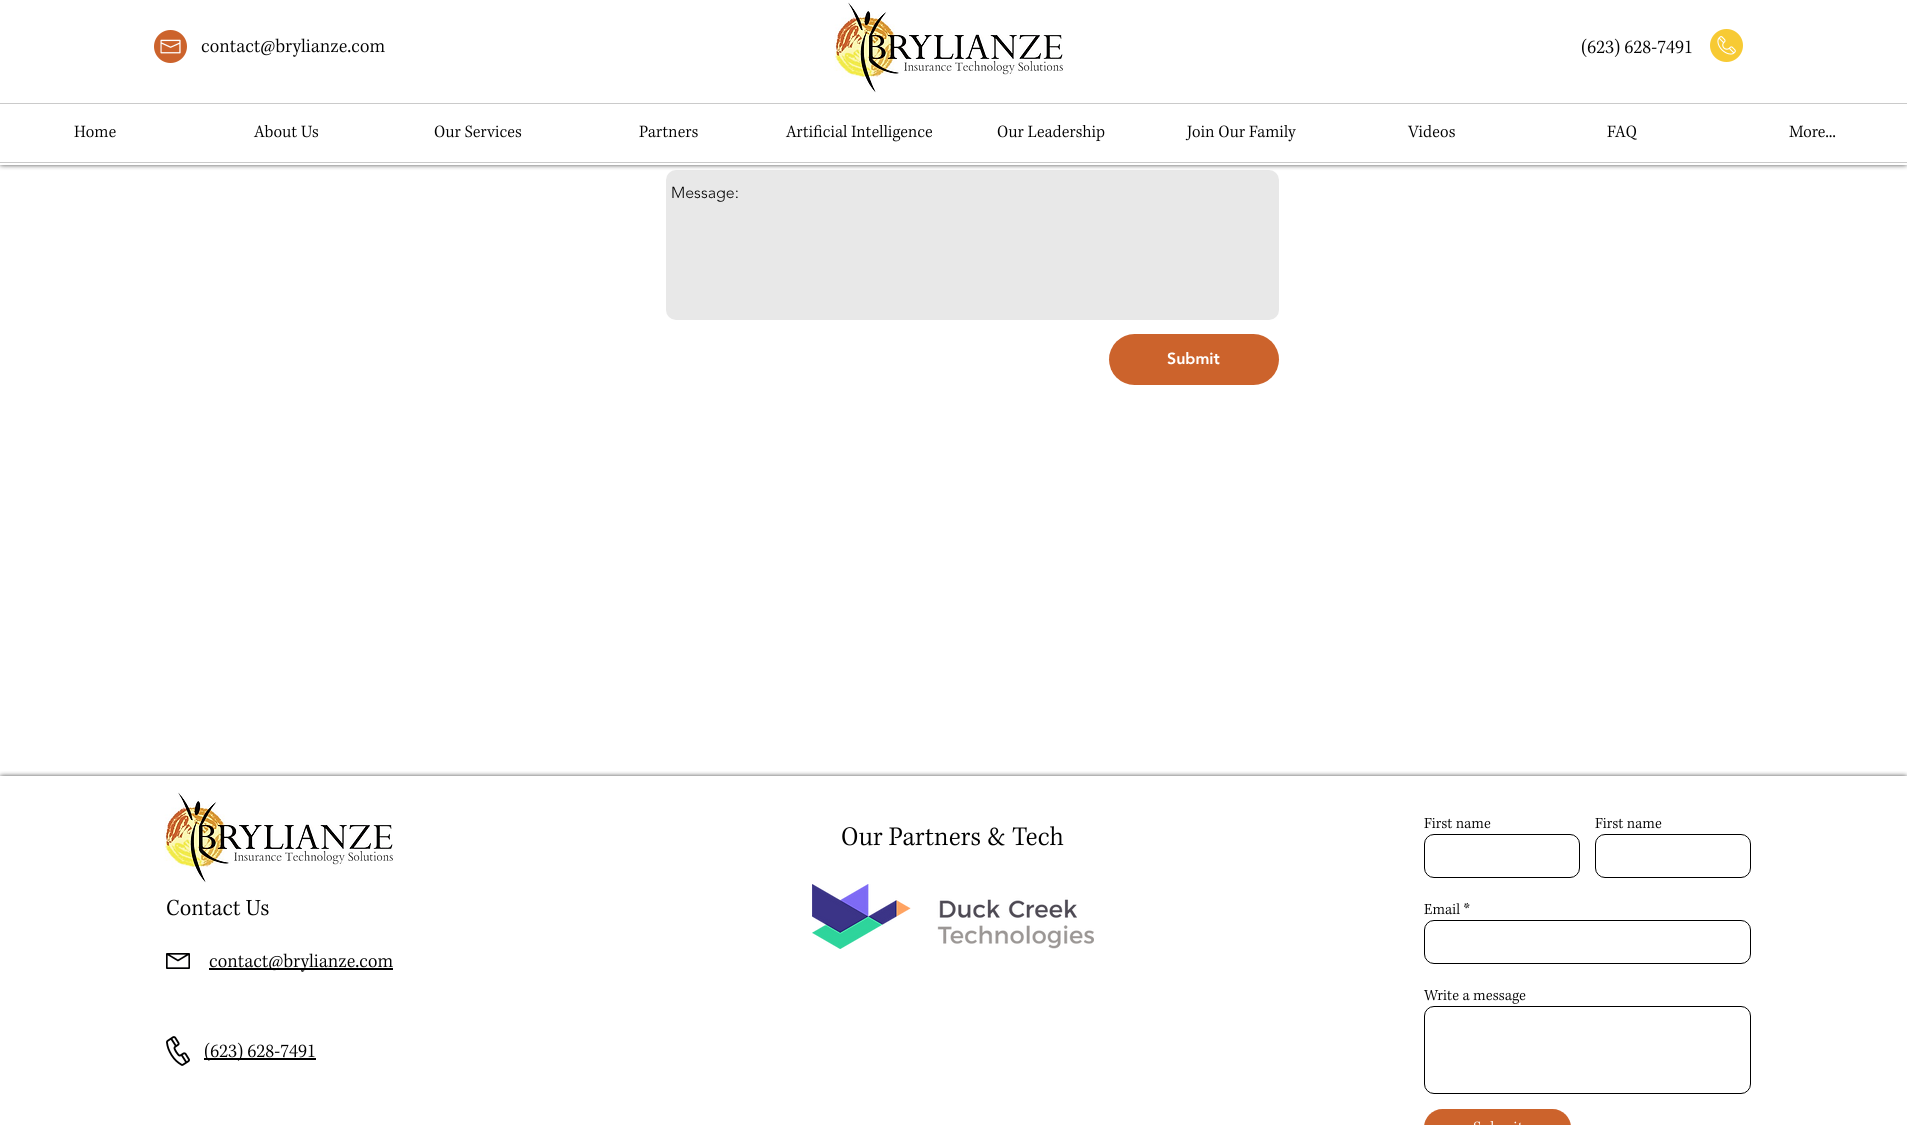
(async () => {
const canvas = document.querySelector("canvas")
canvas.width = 1907
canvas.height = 1125
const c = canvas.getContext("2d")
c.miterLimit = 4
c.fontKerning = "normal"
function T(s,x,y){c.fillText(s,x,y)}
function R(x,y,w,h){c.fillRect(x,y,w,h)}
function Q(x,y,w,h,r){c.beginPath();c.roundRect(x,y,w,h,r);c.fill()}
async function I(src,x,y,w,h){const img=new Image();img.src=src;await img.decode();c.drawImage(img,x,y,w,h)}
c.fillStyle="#fff"
R(0,0,1907,1125)
c.fillStyle="#e8e8e8"
Q(666,170,613,150,10)
c.fillStyle="#000000b3"
c.filter="blur(2.5px)"
c.beginPath()
c.rect(0,0,1907,165)
c.fill()
c.filter="none"
c.fillStyle="#fff"
R(0,0,1907,165)
await I("1.png",154,30,33,33)
await I("2.png",201,38,184,19)
await I("3.png",834,2,229,91)
await I("4.png",1582,38,110,19)
await I("5.png",1710,29,33,33)
c.fillStyle="#cacaca"
R(0,103,1907,1)
R(0,162,1907,1)
await I("6.png",74,125,42,13)
await I("7.png",253,125,66,13)
await I("8.png",434,125,88,13)
await I("9.png",639,125,59,13)
await I("10.png",785,124,147,18)
await I("11.png",997,125,108,17)
await I("12.png",1185,125,111,17)
await I("13.png",1407,124,48,14)
await I("14.png",1607,125,30,15)
await I("15.png",1789,125,47,13)
c.font="300 16px 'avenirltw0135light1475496'"
c.fillStyle="#000"
T("Message:",671,198)
c.fillStyle="#cc632c"
Q(1109,334,170,51,25.5)
c.font="900 16px 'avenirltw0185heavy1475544'"
c.fillStyle="#fff"
T("Submit",1167,364)
c.save()
c.beginPath()
c.rect(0,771,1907,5)
c.clip()
c.fillStyle="#000000b3"
c.filter="blur(2.5px)"
c.beginPath()
c.rect(0,776,1907,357)
c.fill()
c.filter="none"
c.restore()
await I("3.png",164,792,229,91)
await I("16.png",167,899,102,17)
await I("17.png",166,953,24,16)
c.fillStyle="#000"
R(209,968,184,2)
await I("18.png",209,953,184,19)
await I("19.png",166,1036,24,30)
R(204,1058,112,2)
await I("20.png",205,1042,110,19)
await I("21.png",842,826,222,20)
await I("22.png",812,884,282,65)
await I("23.png",1424,818,67,11)
c.beginPath()
c.roundRect(1424.5,834.5,155,43,9.5)
c.strokeStyle="#000"
c.stroke()
await I("23.png",1595,818,67,11)
c.beginPath()
c.roundRect(1595.5,834.5,155,43,9.5)
c.stroke()
await I("24.png",1424,903,36,12)
await I("25.png",1464,902,6,7)
c.beginPath()
c.roundRect(1424.5,920.5,326,43,9.5)
c.stroke()
await I("26.png",1423,990,103,14)
c.beginPath()
c.roundRect(1424.5,1006.5,326,87,9.5)
c.stroke()
c.fillStyle="#cc632c"
Q(1424,1109,147,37,21)
await I("27.png",1474,1121,47,4)
})()
